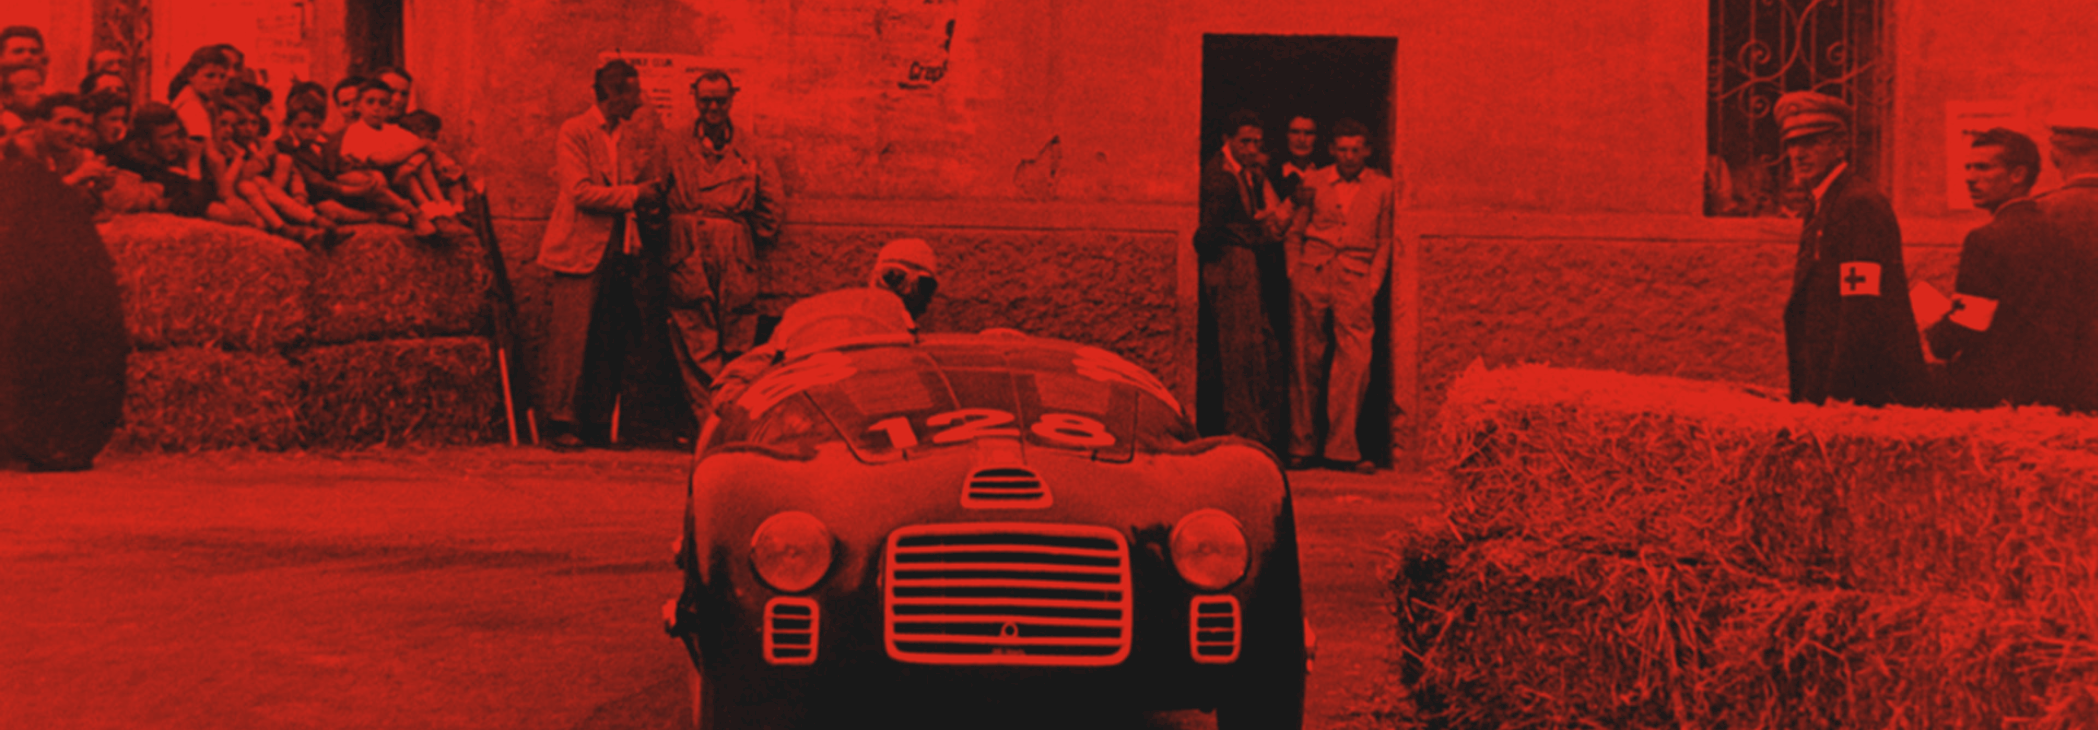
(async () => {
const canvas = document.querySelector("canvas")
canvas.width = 2098
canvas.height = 730
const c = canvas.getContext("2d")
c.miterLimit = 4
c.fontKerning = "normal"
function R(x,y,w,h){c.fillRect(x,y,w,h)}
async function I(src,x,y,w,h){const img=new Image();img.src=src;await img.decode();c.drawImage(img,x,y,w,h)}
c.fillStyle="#fff"
R(0,0,2098,730)
await I("1.png",0,0,2098,730)
})()
